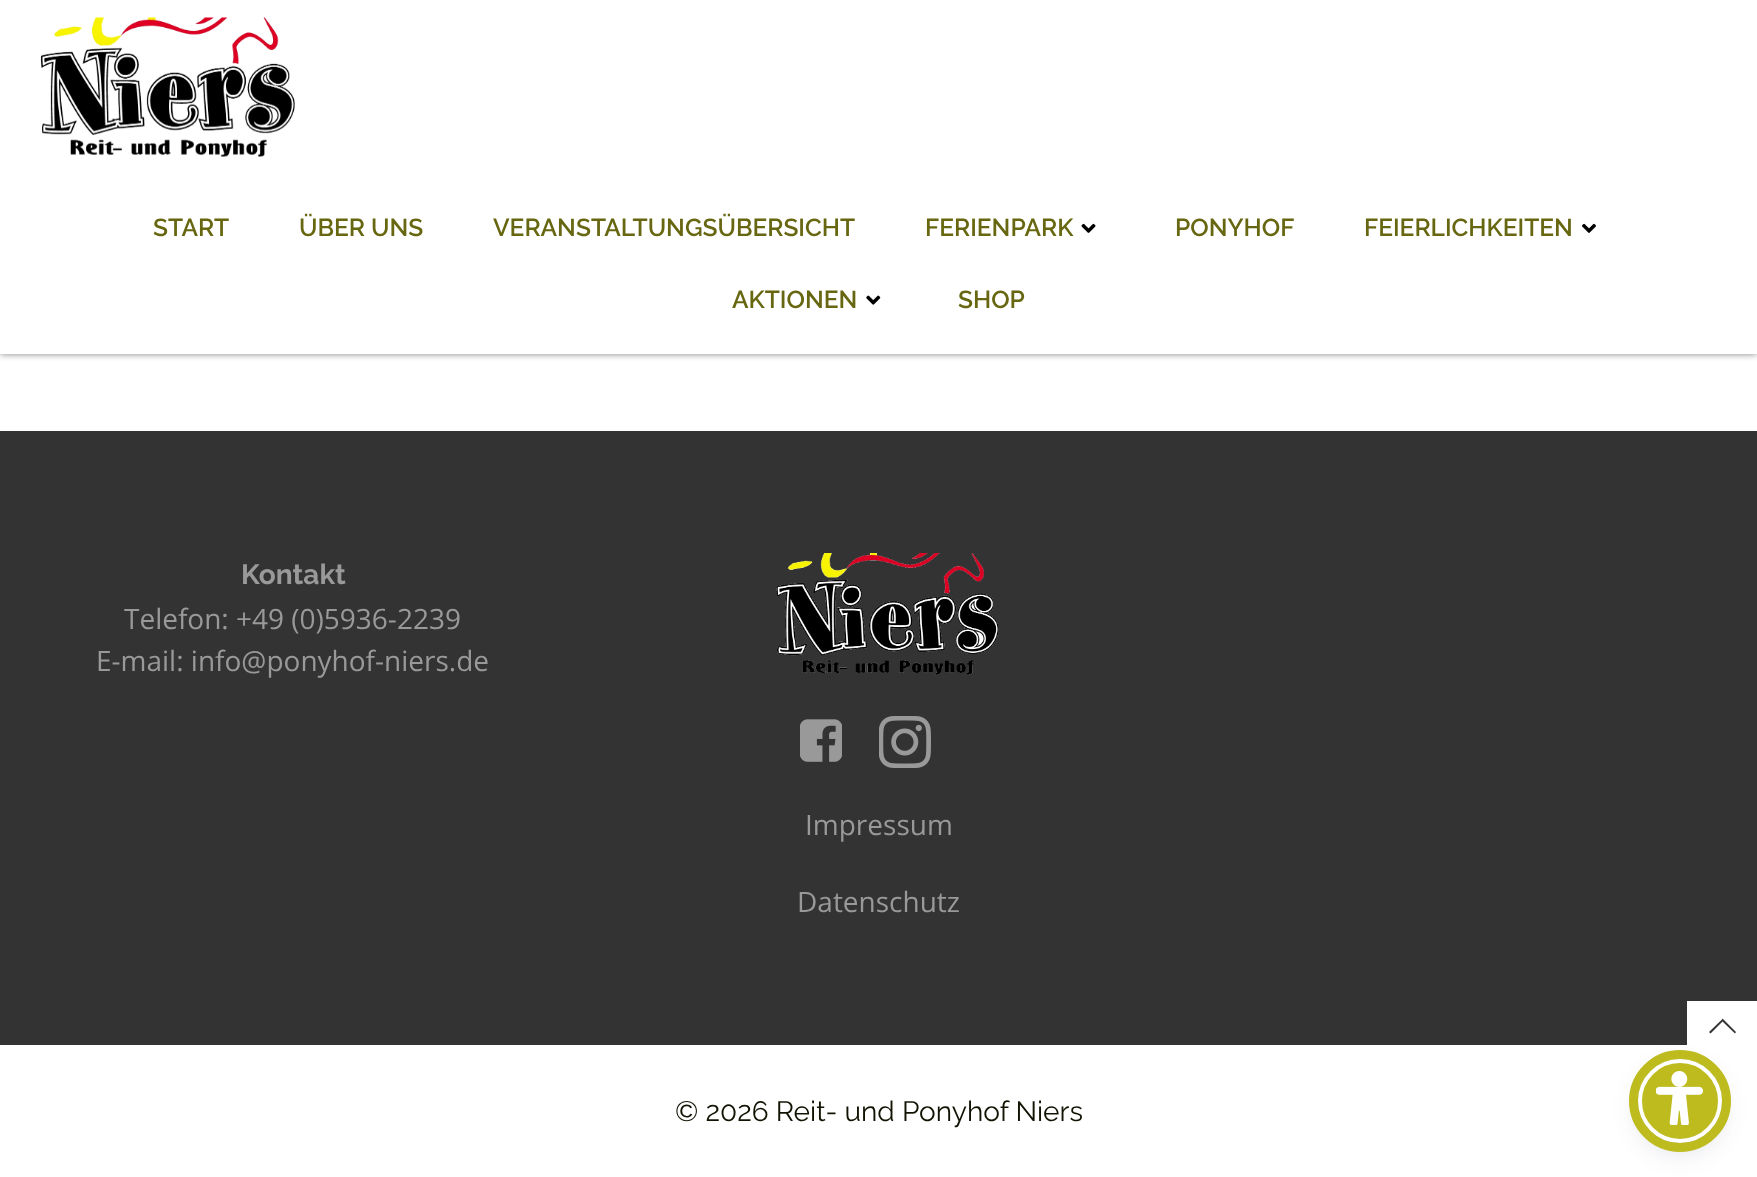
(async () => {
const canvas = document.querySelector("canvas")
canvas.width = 1757
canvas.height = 1177
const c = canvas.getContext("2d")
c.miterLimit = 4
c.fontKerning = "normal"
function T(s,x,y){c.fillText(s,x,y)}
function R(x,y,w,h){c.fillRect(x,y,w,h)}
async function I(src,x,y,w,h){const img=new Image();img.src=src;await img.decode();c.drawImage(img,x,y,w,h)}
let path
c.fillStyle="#fff"
R(0,0,1757,1177)
c.save()
path = new Path2D("M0 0h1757v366h-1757zm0 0h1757v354h-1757z")
c.clip(path,"evenodd")
c.fillStyle="#00000080"
c.filter="blur(3.5px)"
c.beginPath()
c.rect(0,0,1757,354)
c.fill()
c.filter="none"
c.restore()
c.fillStyle="#fffffff2"
R(0,353,1757,1)
await I("1.png",40,17,255,140)
c.font="600 24.5px Raleway"
c.fillStyle="#686711"
T("START",153,236)
T("ÜBER UNS",299,236)
T("VERANSTALTUNGSÜBERSICHT",493,236)
T("FERIENPARK",925,236)
await I("2.png",1081,223,15,10)
T("PONYHOF",1175,236)
T("FEIERLICHKEITEN",1364,236)
await I("3.png",1582,223,14,10)
T("AKTIONEN",732,308)
await I("4.png",866,295,15,10)
T("SHOP",958,308)
c.fillStyle="#333"
R(0,431,1757,614)
c.font="bold 28px Raleway"
c.fillStyle="#999"
T("Kontakt",241,584)
c.font="28px Open Sans"
T("Telefon: +49 (0)5936-2239",124,629)
T("E-mail: info@ponyhof-niers.de",96,671)
await I("5.png",776,553,223,122)
await I("6.png",800,719,42,43)
await I("7.png",879,716,52,52)
T("Impressum",805,835)
T("Datenschutz",797,912)
c.fillStyle="#fff"
R(1687,1001,70,44)
c.fillStyle="#333"
path = new Path2D("M1722.5 1018.5l13.5 13.5l-1 1.5l-12.5-12l-12 12l-1.5-1.5l13-12.5z")
c.fill(path)
c.font="28px Raleway"
c.fillStyle="#131303"
T("© 2026 Reit- und Ponyhof Niers",675,1121)
c.fillStyle="#5d649433"
c.filter="blur(3.5px)"
c.beginPath()
c.roundRect(1638,1062,84,84,42)
c.fill()
c.filter="none"
c.fillStyle="#252c6126"
c.filter="blur(13px)"
c.beginPath()
c.roundRect(1638,1068,84,84,42)
c.fill()
c.filter="none"
c.fillStyle="#bdbb1e"
c.beginPath()
c.arc(1680,1101,40,0,7)
c.fill()
c.strokeStyle="#fff"
c.lineWidth=4
c.stroke()
c.beginPath()
c.arc(1680,1101,46.5,0,7)
c.strokeStyle="#bdbb1e"
c.lineWidth=9
c.stroke()
await I("8.png",1656,1071,48,54)
})()
